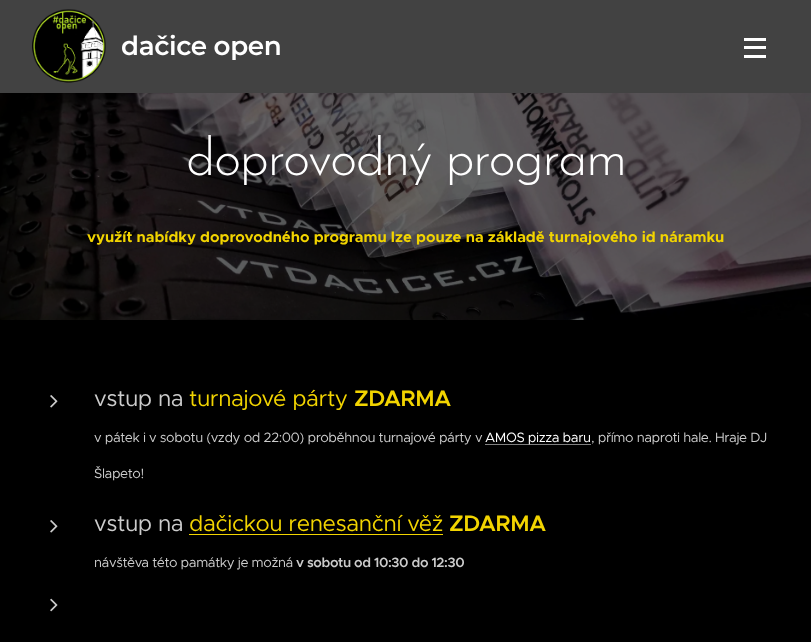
(async () => {
const canvas = document.querySelector("canvas")
canvas.width = 811
canvas.height = 642
const c = canvas.getContext("2d")
c.miterLimit = 4
c.fontKerning = "normal"
function T(s,x,y){c.fillText(s,x,y)}
function R(x,y,w,h){c.fillRect(x,y,w,h)}
async function I(src,x,y,w,h){const img=new Image();img.src=src;await img.decode();c.drawImage(img,x,y,w,h)}
c.fillStyle="#fff"
R(0,0,811,642)
c.fillStyle="#424242"
R(0,0,811,93)
await I("1.png",32,9,74,74)
c.letterSpacing="-0.4px"
c.font="600 26.25px Montserrat"
c.fillStyle="#fff"
T("dačice open",121,55)
R(744,46,22,3)
R(744,38,22,3)
R(744,55,22,3)
await I("2.png",0,93,811,227)
c.letterSpacing="-1.6px"
c.font="300 52.5px Josefin Sans"
T("doprovodný program",186,175)
c.letterSpacing="0px"
c.font="bold 15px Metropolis"
c.fillStyle="#f2d400"
T("využít nabídky doprovodného programu lze pouze na základě turnajového id náramku",87,242)
c.fillStyle="#000"
R(0,320,811,322)
await I("3.png",50,395,8,13)
c.letterSpacing="-0.4px"
c.font="22.5px Metropolis"
c.fillStyle="#ccc"
T("vstup na",94,406)
c.fillStyle="#f2d400"
T("turnajové párty",189,406)
c.font="600 22.5px Metropolis"
T("ZDARMA",354,406)
c.font="13.5px Metropolis"
c.fillStyle="#ccc"
T("v pátek i v sobotu (vzdy od 22:00) proběhnou turnajové párty v",94,442)
c.fillStyle="#808080"
R(485,444,106,1)
c.fillStyle="#fff"
T("AMOS pizza baru",485,442)
c.fillStyle="#ccc"
T(", přímo naproti hale. Hraje DJ",591,442)
T("Šlapeto!",94,478)
await I("3.png",50,520,8,13)
c.font="22.5px Metropolis"
T("vstup na",94,531)
c.fillStyle="#f2d400"
T("dačickou renesanční věž",189,531)
R(189,534,254,1)
c.font="600 22.5px Metropolis"
T("ZDARMA",449,531)
c.font="13.5px Metropolis"
c.fillStyle="#ccc"
T("návštěva této památky je možná",94,567)
c.font="600 13.5px Metropolis"
T("v sobotu od 10:30 do 12:30",296,567)
await I("4.png",50,598,8,14)
})()
